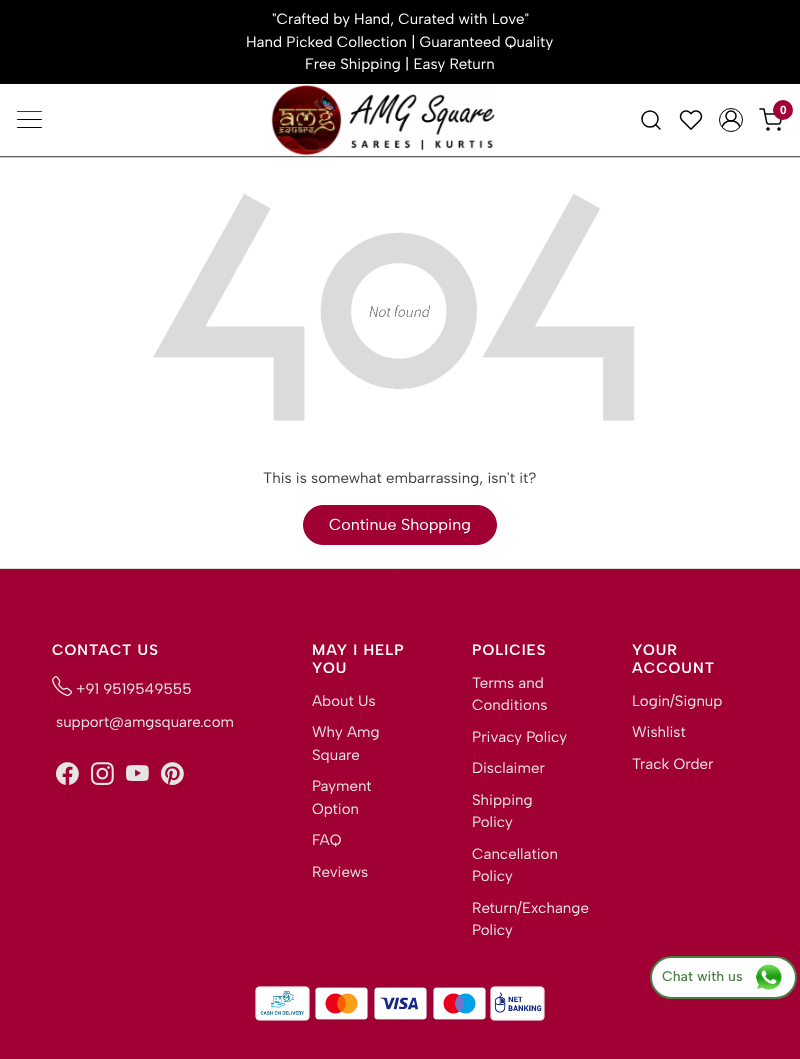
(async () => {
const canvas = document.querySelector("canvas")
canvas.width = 800
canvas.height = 1059
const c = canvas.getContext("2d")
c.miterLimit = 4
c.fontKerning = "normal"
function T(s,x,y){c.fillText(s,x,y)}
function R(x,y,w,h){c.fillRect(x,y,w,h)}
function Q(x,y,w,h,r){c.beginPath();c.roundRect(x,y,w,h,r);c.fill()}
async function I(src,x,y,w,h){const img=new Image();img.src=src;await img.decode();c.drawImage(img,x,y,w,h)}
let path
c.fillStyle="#fff"
R(0,0,800,1059)
c.fillStyle="#000"
R(0,0,800,84)
c.font="15px Albert Sans"
c.fillStyle="#fff"
T("\"Crafted by Hand, Curated with Love\"",272,24)
T("Hand Picked Collection | Guaranteed Quality",246,47)
T("Free Shipping | Easy Return",305,69)
c.fillStyle="#eee"
R(0,157,800,1)
c.strokeStyle="#1b1f2326"
c.strokeRect(-.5,83.5,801,74)
await I("1.png",271,85,224,70)
c.beginPath()
c.arc(650,119,8,0,7)
c.strokeStyle="#000"
c.lineWidth=1.5
c.stroke()
path = new Path2D("M660 129l-4.5-4.5")
c.lineCap="round"
c.lineJoin="round"
c.stroke(path)
await I("2.png",679,110,24,20)
c.beginPath()
c.arc(731,120,11.5,0,7)
c.lineWidth=1
c.stroke()
c.save()
c.beginPath()
c.roundRect(720,109,22,22,11)
c.clip()
path = new Path2D("M722 129c0-11 18-11 18 0")
c.lineWidth=1.5
c.lineCap="square"
c.lineJoin="miter"
c.stroke(path)
c.restore()
c.beginPath()
c.arc(731,116,5,0,7)
c.lineWidth=1.5
c.stroke()
await I("3.png",759,108,23,23)
c.fillStyle="#a10035"
c.beginPath()
c.arc(783,110,10,0,7)
c.fill()
c.font="bold 12px Liberation Sans"
c.fillStyle="#fff"
T("0",780,114)
c.fillStyle="#000"
Q(17,127,25,1,.5)
Q(17,119,25,1,.5)
c.fillStyle="#343a40"
Q(17,111,25,1,.5)
c.fillStyle="#636363"
R(0,156,800,1)
await I("4.png",152,193,483,228)
c.font="15px Albert Sans"
c.fillStyle="#3c3b3b"
T("This is somewhat embarrassing, isn't it?",263,483)
c.fillStyle="#a10035"
c.beginPath()
c.roundRect(303.5,505.5,193,39,19.5)
c.fill()
c.strokeStyle="#a10035"
c.lineWidth=1
c.lineJoin="miter"
c.stroke()
c.font="16px Albert Sans"
c.fillStyle="#fff"
T("Continue Shopping",329,530)
c.fillStyle="#a10035"
c.beginPath()
c.rect(-.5,568.5,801,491)
c.fill()
c.strokeStyle="#ddddde"
c.stroke()
c.letterSpacing="1px"
c.font="600 15px Albert Sans"
c.fillStyle="#fff"
T("CONTACT US",52,655)
await I("5.png",52,676,20,20)
c.letterSpacing="0px"
c.font="15px Albert Sans"
c.fillStyle="#e5e5e5"
T("+91 9519549555",76,694)
T("support@amgsquare.com",56,727)
await I("6.png",56,762,23,23)
await I("7.png",91,762,23,23)
await I("8.png",126,765,23,17)
await I("9.png",161,762,23,23)
c.letterSpacing="1px"
c.font="600 15px Albert Sans"
c.fillStyle="#fff"
T("MAY I HELP",312,655)
T("YOU",312,673)
c.letterSpacing="0px"
c.font="15px Albert Sans"
c.fillStyle="#e5e5e5"
T("About Us",312,706)
T("Why Amg",312,737)
T("Square",312,760)
T("Payment",312,791)
T("Option",312,814)
T("FAQ",312,845)
T("Reviews",312,877)
c.letterSpacing="1px"
c.font="600 15px Albert Sans"
c.fillStyle="#fff"
T("POLICIES",472,655)
c.letterSpacing="0px"
c.font="15px Albert Sans"
c.fillStyle="#e5e5e5"
T("Terms and",472,688)
T("Conditions",472,710)
T("Privacy Policy",472,742)
T("Disclaimer",472,773)
T("Shipping",472,805)
T("Policy",472,827)
T("Cancellation",472,859)
T("Policy",472,881)
T("Return/Exchange",472,913)
T("Policy",472,935)
c.letterSpacing="1px"
c.font="600 15px Albert Sans"
c.fillStyle="#fff"
T("YOUR",632,655)
T("ACCOUNT",632,673)
c.letterSpacing="0px"
c.font="15px Albert Sans"
c.fillStyle="#e5e5e5"
T("Login/Signup",632,706)
T("Wishlist",632,737)
T("Track Order",632,769)
await I("10.png",255,986,55,35)
await I("11.png",314,986,54,35)
await I("12.png",373,986,54,35)
await I("13.png",432,986,54,35)
await I("14.png",490,986,55,35)
c.fillStyle="#fff"
c.beginPath()
c.roundRect(651,957,145,41,20.5)
c.fill()
c.strokeStyle="#4b7e43"
c.lineWidth=2
c.stroke()
c.font="500 14px Albert Sans"
c.fillStyle="#4b7e43"
T("Chat with us",662,981)
await I("15.png",753,962,31,31)
})()
